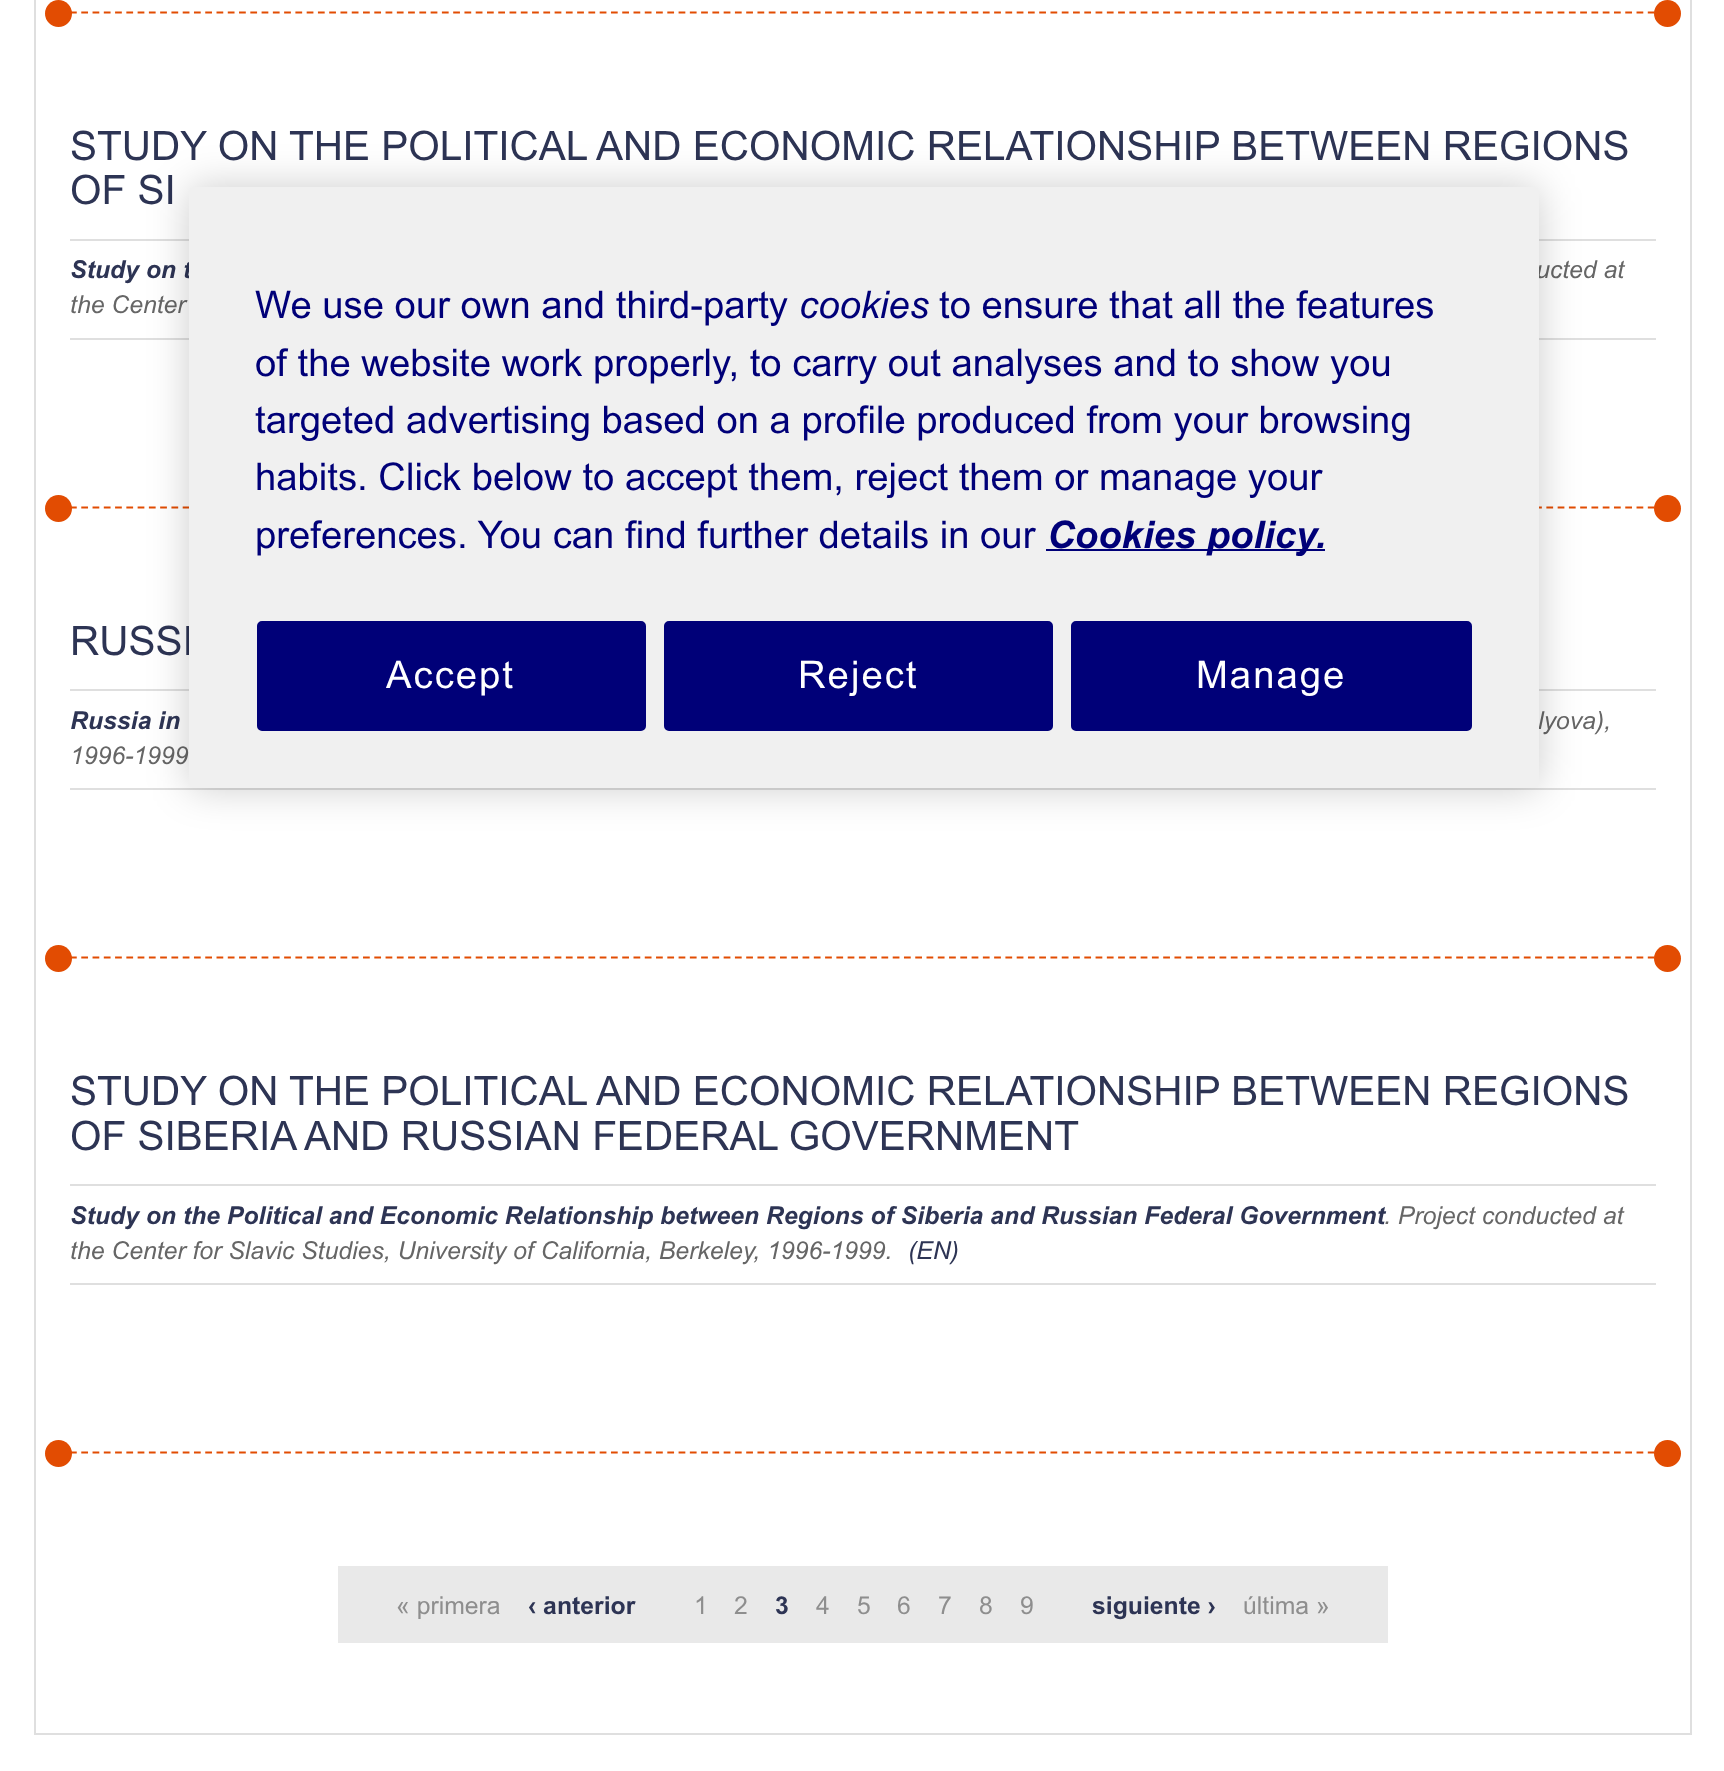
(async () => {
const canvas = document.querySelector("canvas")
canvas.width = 1724
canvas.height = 1771
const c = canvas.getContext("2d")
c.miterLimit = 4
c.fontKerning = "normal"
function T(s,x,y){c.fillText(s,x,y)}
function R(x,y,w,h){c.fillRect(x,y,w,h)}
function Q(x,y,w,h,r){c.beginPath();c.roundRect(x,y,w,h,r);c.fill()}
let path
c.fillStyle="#fff"
R(0,0,1724,1771)
c.strokeStyle="#dfdfdf"
c.lineWidth=2
c.strokeRect(35,-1,1656,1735)
path = new Path2D("M70 12.5h1586")
c.strokeStyle="#e24c02"
c.lineWidth=2.2
c.setLineDash([6.75,4.52])
c.stroke(path)
c.fillStyle="#e24c02"
c.beginPath()
c.arc(58.5,13.5,13.5,0,7)
c.fill()
c.beginPath()
c.arc(1667.5,13.5,13.5,0,7)
c.fill()
c.font="40.5px Arial"
c.fillStyle="#2d3454"
T("STUDY ON THE POLITICAL AND ECONOMIC RELATIONSHIP BETWEEN REGIONS",70,160)
T("OF SI",70,204)
c.fillStyle="#dfdfdf"
R(70,239,1586,2)
R(70,338,1586,2)
c.font="italic bold 24.75px Arial"
c.fillStyle="#2d3454"
T("Study on t",70,278)
c.font="italic 24.75px Arial"
c.fillStyle="#666"
T("ucted at",1536,278)
T("the Center",70,313)
path = new Path2D("M70 507.5h1586")
c.stroke(path)
c.fillStyle="#e24c02"
c.beginPath()
c.arc(58.5,508.5,13.5,0,7)
c.fill()
c.beginPath()
c.arc(1667.5,508.5,13.5,0,7)
c.fill()
c.font="40.5px Arial"
c.fillStyle="#2d3454"
T("RUSSI",70,655)
c.fillStyle="#dfdfdf"
R(70,689,1586,2)
R(70,788,1586,2)
c.font="italic bold 24.75px Arial"
c.fillStyle="#2d3454"
T("Russia in",70,729)
c.font="italic 24.75px Arial"
c.fillStyle="#666"
T("lyova),",1538,729)
T("1996-1999",70,764)
path = new Path2D("M70 957.5h1586")
c.stroke(path)
c.fillStyle="#e24c02"
c.beginPath()
c.arc(58.5,958.5,13.5,0,7)
c.fill()
c.beginPath()
c.arc(1667.5,958.5,13.5,0,7)
c.fill()
c.font="40.5px Arial"
c.fillStyle="#2d3454"
T("STUDY ON THE POLITICAL AND ECONOMIC RELATIONSHIP BETWEEN REGIONS",70,1105)
T("OF SIBERIA AND RUSSIAN FEDERAL GOVERNMENT",70,1150)
c.fillStyle="#dfdfdf"
R(70,1184,1586,2)
R(70,1283,1586,2)
c.font="italic bold 24.75px Arial"
c.fillStyle="#2d3454"
T("Study on the Political and Economic Relationship between Regions of Siberia and Russian Federal Government",70,1224)
c.font="italic 24.75px Arial"
c.fillStyle="#666"
T(". Project conducted at",1384,1224)
T("the Center for Slavic Studies, University of California, Berkeley, 1996-1999.",70,1259)
c.fillStyle="#2d3454"
T("(EN)",908,1259)
path = new Path2D("M70 1452.5h1586")
c.stroke(path)
c.fillStyle="#e24c02"
c.beginPath()
c.arc(58.5,1453.5,13.5,0,7)
c.fill()
c.beginPath()
c.arc(1667.5,1453.5,13.5,0,7)
c.fill()
c.fillStyle="#e9e9e9"
R(338,1566,1050,77)
c.font="24.75px Arial"
c.fillStyle="#8e8e8e"
T("« primera",396,1614)
c.font="bold 24.75px Arial"
c.fillStyle="#2d3454"
T("‹ anterior",528,1614)
c.font="24.75px Arial"
c.fillStyle="#8e8e8e"
T("1",694,1614)
T("2",734,1614)
c.font="bold 24.75px Arial"
c.fillStyle="#2d3454"
T("3",775,1614)
c.font="24.75px Arial"
c.fillStyle="#8e8e8e"
T("4",816,1614)
T("5",857,1614)
T("6",897,1614)
T("7",938,1614)
T("8",979,1614)
T("9",1020,1614)
c.font="bold 24.75px Arial"
c.fillStyle="#2d3454"
T("siguiente ›",1092,1614)
c.font="24.75px Arial"
c.fillStyle="#8e8e8e"
T("última »",1243,1614)
c.fillStyle="#00000033"
c.filter="blur(20px)"
c.beginPath()
c.roundRect(189,187,1350,601,6)
c.fill()
c.filter="none"
c.fillStyle="#f0f0f0"
Q(189,187,1350,601,6)
c.font="38.25px Arial"
c.fillStyle="#000078"
T("We use our own and third-party",255,318)
c.font="italic 38.25px Arial"
T("cookies",799,318)
c.font="38.25px Arial"
T("to ensure that all the features",939,318)
T("of the website work properly, to carry out analyses and to show you",255,376)
T("targeted advertising based on a profile produced from your browsing",255,433)
T("habits. Click below to accept them, reject them or manage your",255,490)
T("preferences. You can find further details in our",255,548)
R(1046,549,279,2)
c.font="italic bold 38.25px Arial"
T("Cookies policy.",1047,548)
c.beginPath()
c.roundRect(258,622,387,108,4)
c.fill()
c.strokeStyle="#000078"
c.lineWidth=2
c.setLineDash([])
c.stroke()
c.letterSpacing="2px"
c.font="38.25px Arial"
c.fillStyle="#fff"
T("Accept",386,688)
c.fillStyle="#000078"
c.beginPath()
c.roundRect(665,622,387,108,4)
c.fill()
c.stroke()
c.fillStyle="#fff"
T("Reject",798,688)
c.fillStyle="#000078"
c.beginPath()
c.roundRect(1072,622,399,108,4)
c.fill()
c.stroke()
c.fillStyle="#fff"
T("Manage",1196,688)
})()
